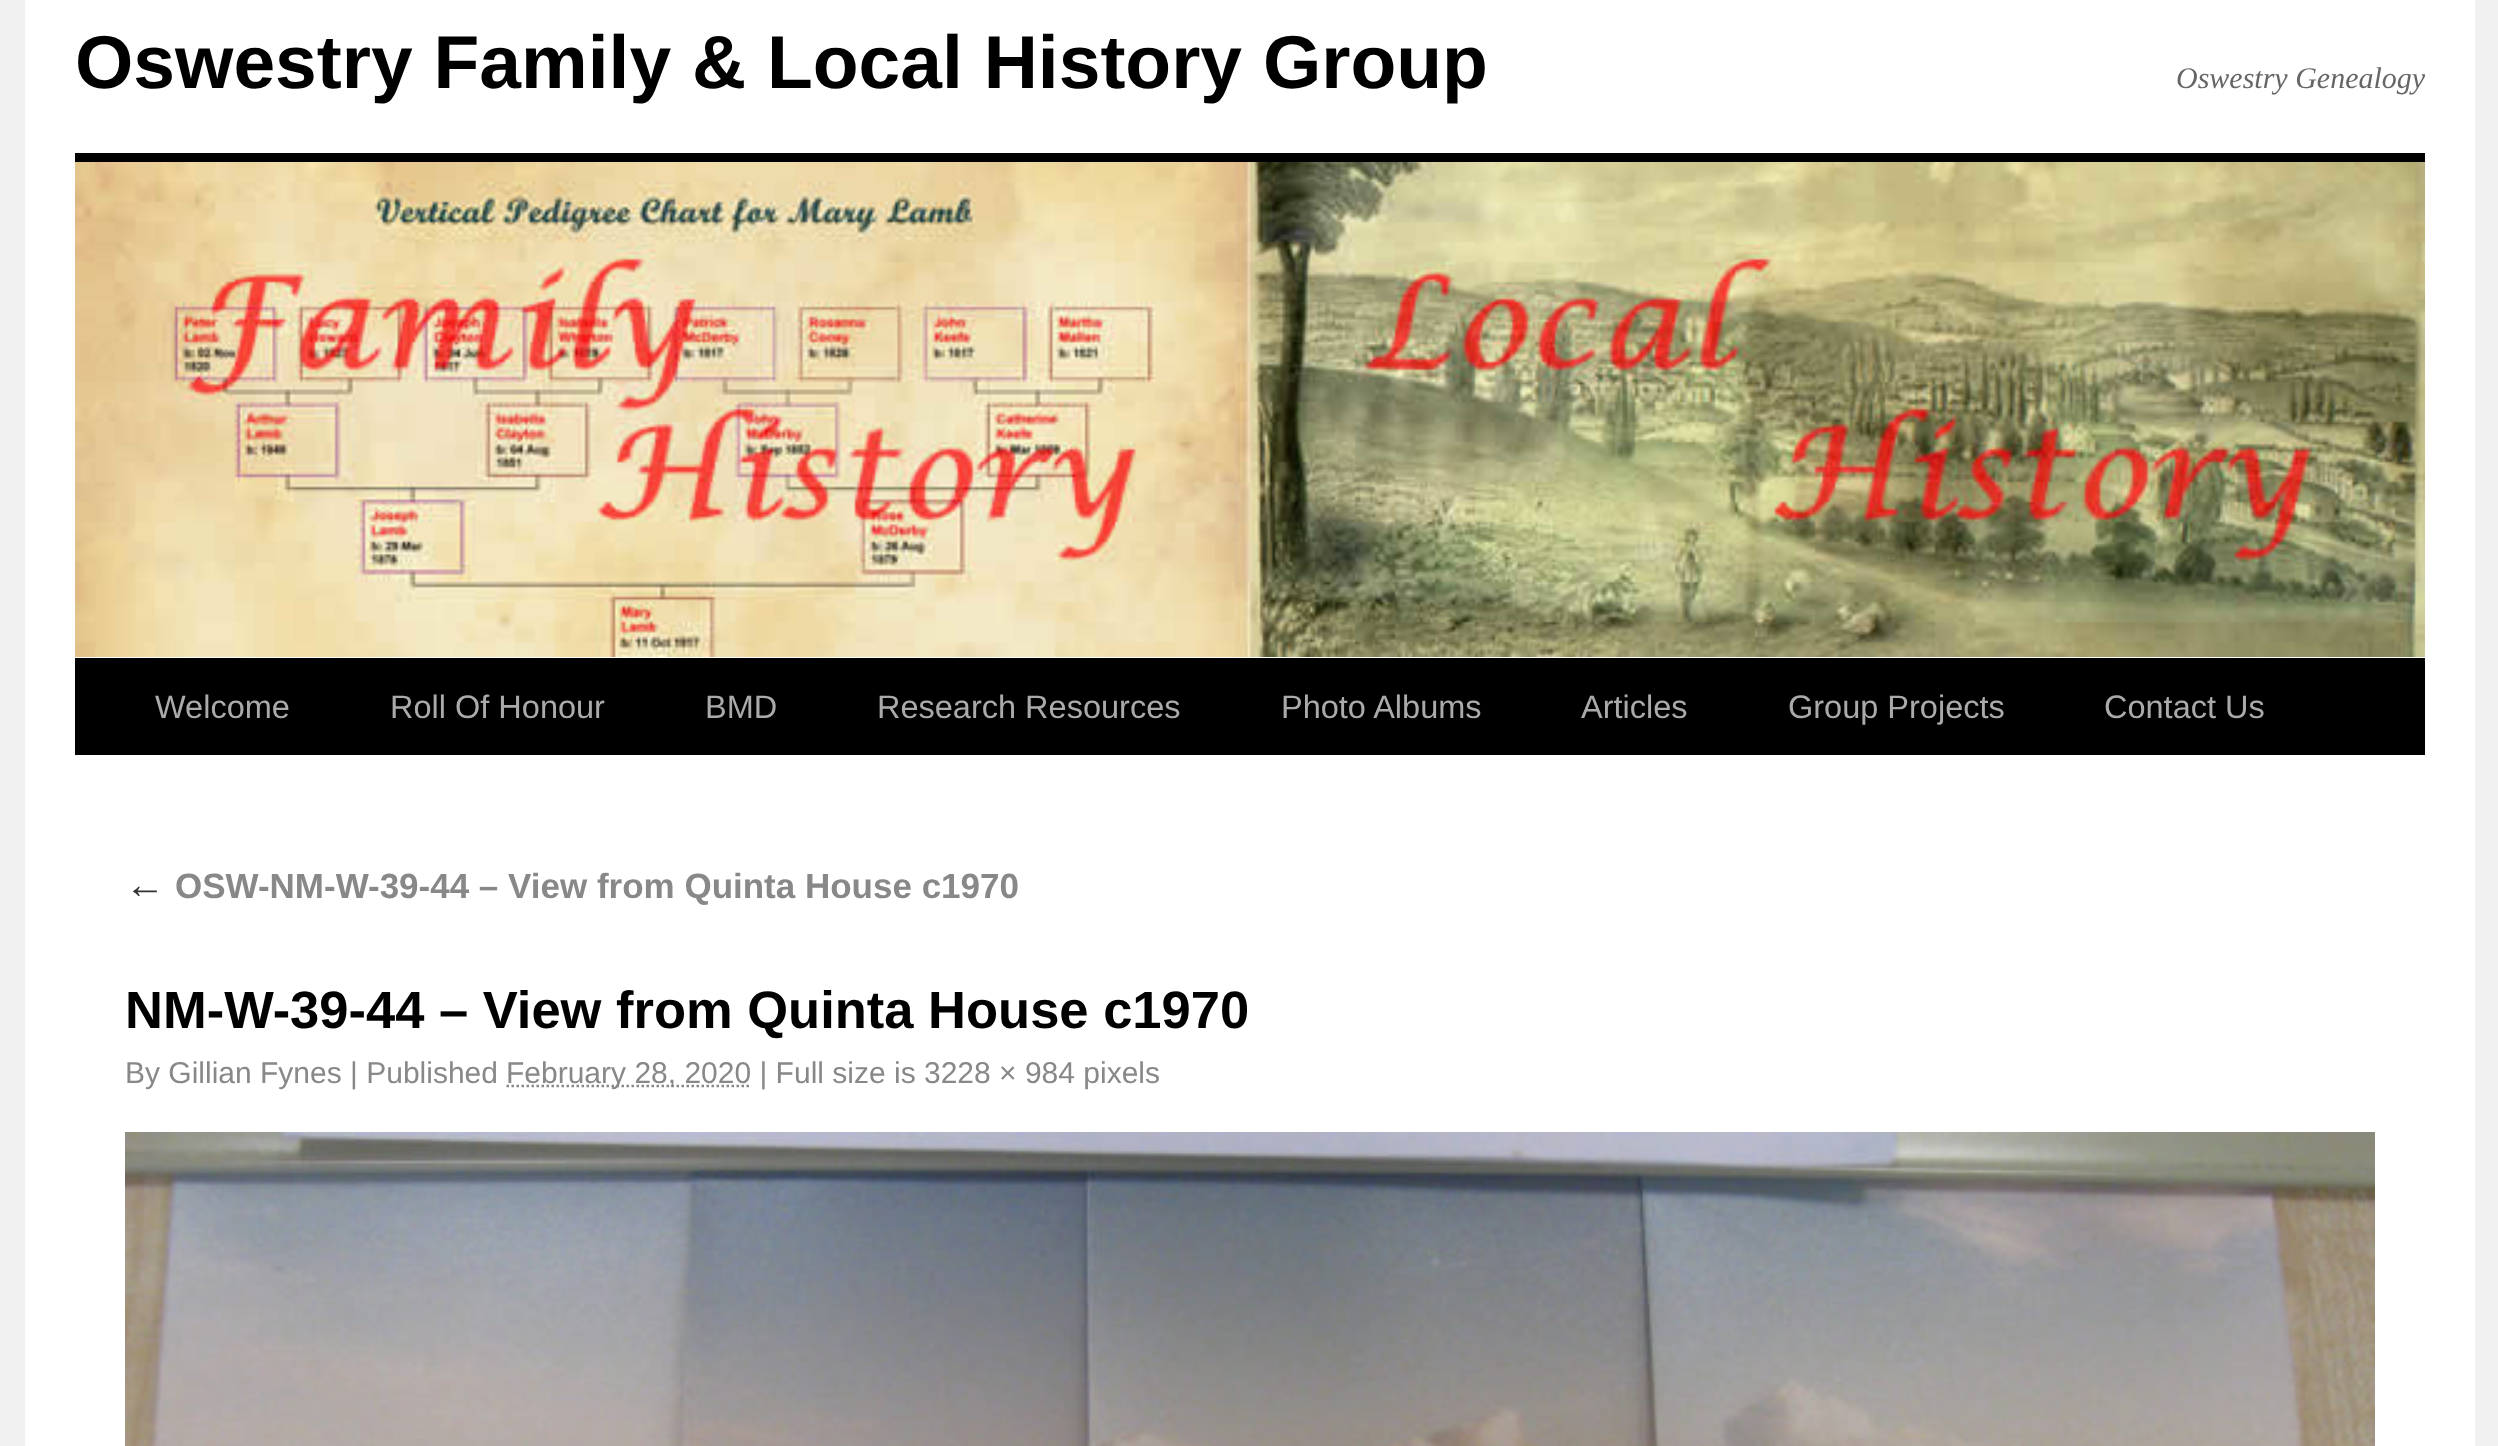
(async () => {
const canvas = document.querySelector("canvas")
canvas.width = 2498
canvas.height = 1446
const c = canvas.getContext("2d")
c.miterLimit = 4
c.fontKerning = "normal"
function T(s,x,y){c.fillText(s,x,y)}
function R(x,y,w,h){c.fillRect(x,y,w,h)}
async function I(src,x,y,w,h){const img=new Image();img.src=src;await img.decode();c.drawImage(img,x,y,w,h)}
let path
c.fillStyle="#f1f1f1"
R(0,0,2498,1446)
c.fillStyle="#fff"
R(25,0,2450,1446)
c.font="bold 75px Liberation Sans"
c.fillStyle="#000"
T("Oswestry Family & Local History Group",75,88)
c.font="italic 30px Liberation Serif"
c.fillStyle="#666"
T("Oswestry Genealogy",2176,88)
c.fillStyle="#000"
R(75,153,2350,9)
R(75,658,2350,97)
await I("1.png",75,162,2350,495)
c.font="32.5px Liberation Sans"
c.fillStyle="#aaa"
T("Welcome",155,718)
T("Roll Of Honour",390,718)
T("BMD",705,718)
T("Research Resources",877,718)
T("Photo Albums",1281,718)
T("Articles",1581,718)
T("Group Projects",1788,718)
T("Contact Us",2104,718)
c.font="italic 40px Liberation Serif"
c.fillStyle="#333"
T("←",125,898)
c.font="bold 35px Liberation Sans"
c.fillStyle="#888"
T("OSW-NM-W-39-44 – View from Quinta House c1970",175,898)
c.font="bold 52.5px Liberation Sans"
c.fillStyle="#000"
T("NM-W-39-44 – View from Quinta House c1970",125,1028)
c.font="30px Liberation Sans"
c.fillStyle="#888"
T("By Gillian Fynes | Published",125,1083)
path = new Path2D("M506.5 1086h245")
c.strokeStyle="#888"
c.lineWidth=2.5
c.setLineDash([2.5,2.5])
c.stroke(path)
T("February 28, 2020 | Full size is 3228 × 984 pixels",506,1083)
await I("2.png",125,1132,2250,314)
})()
